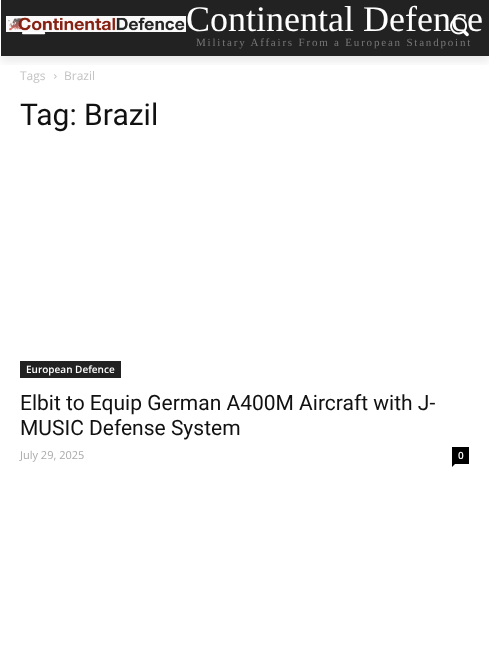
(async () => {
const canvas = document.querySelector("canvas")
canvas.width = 489
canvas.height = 667
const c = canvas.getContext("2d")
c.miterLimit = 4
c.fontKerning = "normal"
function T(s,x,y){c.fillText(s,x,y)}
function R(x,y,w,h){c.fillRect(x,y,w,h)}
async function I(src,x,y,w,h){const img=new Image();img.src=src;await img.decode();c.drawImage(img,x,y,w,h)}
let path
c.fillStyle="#fff"
R(0,0,489,667)
c.fillStyle="#222"
R(1,0,488,56)
await I("1.png",6,16,180,16)
await I("2.png",22,32,24,3)
c.font="36px Liberation Serif"
c.fillStyle="#fff"
T("Continental Defence",186,31)
await I("3.png",450,17,19,20)
await I("4.png",54,74,3,5)
c.save()
c.beginPath()
c.rect(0,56,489,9)
c.clip()
c.fillStyle="#00000014"
c.filter="blur(4px)"
c.beginPath()
c.rect(1,6,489,56)
c.fill()
c.filter="none"
c.restore()
c.letterSpacing="1.8px"
c.font="11px Liberation Serif"
c.fillStyle="#777"
T("Military Affairs From a European Standpoint",196,46)
c.letterSpacing="0px"
c.font="12px Open Sans"
c.fillStyle="#c3c3c3"
T("Tags",20,80)
T("Brazil",64,80)
c.font="30px Roboto"
c.fillStyle="#111"
T("Tag: Brazil",20,125)
c.fillStyle="#222"
R(20,361,101,17)
c.font="600 10px Open Sans"
c.fillStyle="#fff"
T("European Defence",26,373)
c.font="21px Roboto"
c.fillStyle="#111"
T("Elbit to Equip German A400M Aircraft with J-",20,410)
T("MUSIC Defense System",20,435)
c.font="11px Open Sans"
c.fillStyle="#aaa"
T("July 29, 2025",20,459)
c.fillStyle="#000"
R(452,447,17,17)
c.font="600 10px Open Sans"
c.fillStyle="#fff"
T("0",458,459)
c.fillStyle="#000"
path = new Path2D("M452 464h3l-3 3z")
c.fill(path)
})()
